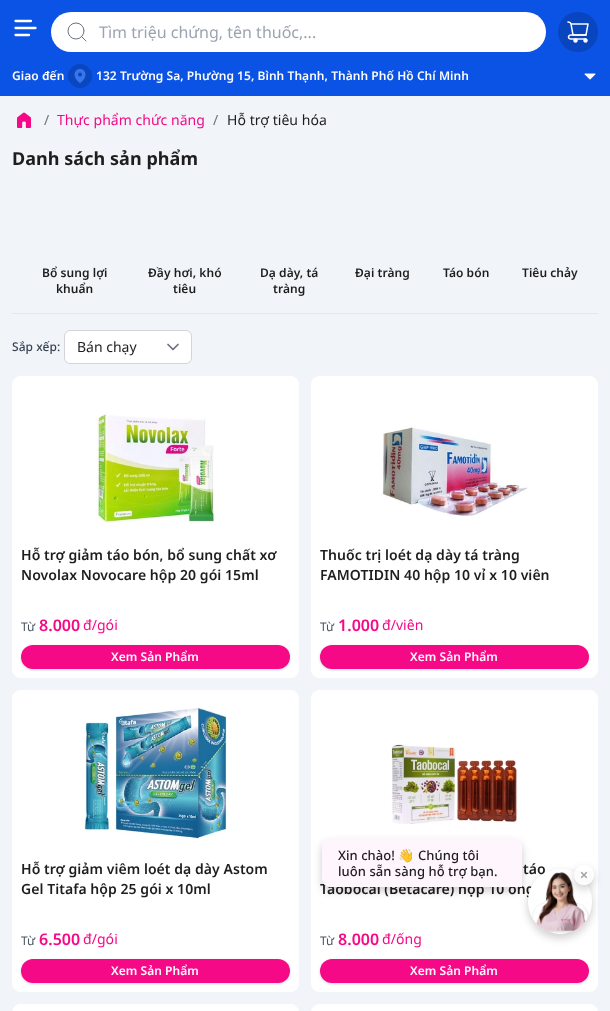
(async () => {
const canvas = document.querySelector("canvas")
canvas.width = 610
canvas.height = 1011
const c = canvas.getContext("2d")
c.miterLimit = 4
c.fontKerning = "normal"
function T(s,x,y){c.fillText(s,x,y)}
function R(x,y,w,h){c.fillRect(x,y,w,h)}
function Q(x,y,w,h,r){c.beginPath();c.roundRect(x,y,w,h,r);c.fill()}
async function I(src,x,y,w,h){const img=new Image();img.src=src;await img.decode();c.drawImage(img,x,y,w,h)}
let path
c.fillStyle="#f1f5f9"
R(0,0,610,1011)
c.fillStyle="#0b53e5"
R(0,0,610,96)
path = new Path2D("M29 35h-13.5m15.5-14h-15.5m20 7h-20")
c.strokeStyle="#fff"
c.lineWidth=2.3
c.lineCap="round"
c.lineJoin="round"
c.stroke(path)
c.fillStyle="#fff"
Q(51,12,495,40,20)
c.beginPath()
c.arc(76,31,8,0,7)
c.strokeStyle="#6b7280"
c.lineWidth=1
c.stroke()
path = new Path2D("M86 41l-4.5-4.5")
c.stroke(path)
c.font="16px Noto Sans"
c.fillStyle="#9ca3b0"
T("Tìm triệu chứng, tên thuốc,...",99,38)
c.fillStyle="#0945be"
c.beginPath()
c.arc(578,32,20,0,7)
c.fill()
await I("1.png",567,21,22,22)
c.letterSpacing="0.05px"
c.font="600 12px Noto Sans"
c.fillStyle="#fcfcfc"
T("Giao đến",12,80)
await I("2.png",68,64,24,24)
T("132 Trường Sa, Phường 15, Bình Thạnh, Thành Phố Hồ Chí Minh",96,80)
await I("3.png",584,73,12,7)
await I("4.png",17,112,14,16)
c.font="14px Noto Sans"
c.fillStyle="#6b7280"
T("/",44,125)
c.fillStyle="#f60987"
T("Thực phẩm chức năng",57,125)
c.fillStyle="#6b7280"
T("/",213,125)
c.fillStyle="#1e1e1e"
T("Hỗ trợ tiêu hóa",227,125)
c.font="bold 18px Noto Sans"
T("Danh sách sản phẩm",12,165)
c.font="600 12px Noto Sans"
T("Bổ sung lợi",42,277)
T("khuẩn",56,293)
T("Đầy hơi, khó",148,277)
T("tiêu",173,293)
T("Dạ dày, tá",260,277)
T("tràng",273,293)
T("Đại tràng",355,277)
T("Táo bón",443,277)
T("Tiêu chảy",522,277)
c.fillStyle="#e5e7eb"
R(12,313,586,1)
c.font="500 12px Noto Sans"
c.fillStyle="#384252"
T("Sắp xếp:",12,351)
c.fillStyle="#fff"
c.beginPath()
c.roundRect(64.5,330.5,127,33,5.5)
c.fill()
c.strokeStyle="#d1d5db"
c.lineJoin="miter"
c.stroke()
c.letterSpacing="0px"
c.font="14px Noto Sans"
c.fillStyle="#1e1e1e"
T("Bán chạy",77,352)
path = new Path2D("M168 344.5l5 5l5-5")
c.strokeStyle="#6b7280"
c.lineWidth=1.7
c.lineJoin="round"
c.stroke(path)
c.fillStyle="#fff"
c.beginPath()
c.roundRect(12.5,376.5,286,301,7.5)
c.fill()
c.strokeStyle="#fff"
c.lineWidth=1
c.lineJoin="miter"
c.stroke()
await I("5.png",96,412,119,112)
c.letterSpacing="0.05px"
c.font="600 14px Noto Sans"
c.fillStyle="#1e1e1e"
T("Hỗ trợ giảm táo bón, bổ sung chất xơ",21,560)
T("Novolax Novocare hộp 20 gói 15ml",21,580)
c.font="12px Noto Sans"
c.fillStyle="#4b5563"
T("Từ",21,631)
c.font="600 16px Noto Sans"
c.fillStyle="#f60987"
T("8.000",39,631)
c.font="14px Noto Sans"
T("đ/gói",83,630)
c.fillStyle="#0000000f"
c.filter="blur(1px)"
c.beginPath()
c.roundRect(21,646,269,24,12)
c.fill()
c.filter="none"
c.fillStyle="#0000001a"
c.filter="blur(1.5px)"
c.beginPath()
c.roundRect(21,646,269,24,12)
c.fill()
c.filter="none"
c.fillStyle="#f60987"
Q(21,645,269,24,12)
c.font="600 12px Noto Sans"
c.fillStyle="#fcfcfc"
T("Xem Sản Phẩm",111,661)
c.fillStyle="#fff"
c.beginPath()
c.roundRect(311.5,376.5,286,301,7.5)
c.fill()
c.stroke()
await I("6.png",382,426,146,90)
c.font="600 14px Noto Sans"
c.fillStyle="#1e1e1e"
T("Thuốc trị loét dạ dày tá tràng",320,560)
T("FAMOTIDIN 40 hộp 10 vỉ x 10 viên",320,580)
c.font="12px Noto Sans"
c.fillStyle="#4b5563"
T("Từ",320,631)
c.font="600 16px Noto Sans"
c.fillStyle="#f60987"
T("1.000",338,631)
c.font="14px Noto Sans"
T("đ/viên",382,630)
c.fillStyle="#0000000f"
c.filter="blur(1px)"
c.beginPath()
c.roundRect(320,646,269,24,12)
c.fill()
c.filter="none"
c.fillStyle="#0000001a"
c.filter="blur(1.5px)"
c.beginPath()
c.roundRect(320,646,269,24,12)
c.fill()
c.filter="none"
c.fillStyle="#f60987"
Q(320,645,269,24,12)
c.font="600 12px Noto Sans"
c.fillStyle="#fcfcfc"
T("Xem Sản Phẩm",410,661)
c.fillStyle="#fff"
c.beginPath()
c.roundRect(12.5,690.5,286,301,7.5)
c.fill()
c.stroke()
await I("7.png",84,707,143,132)
c.font="600 14px Noto Sans"
c.fillStyle="#1e1e1e"
T("Hỗ trợ giảm viêm loét dạ dày Astom",21,874)
T("Gel Titafa hộp 25 gói x 10ml",21,894)
c.font="12px Noto Sans"
c.fillStyle="#4b5563"
T("Từ",21,945)
c.font="600 16px Noto Sans"
c.fillStyle="#f60987"
T("6.500",39,945)
c.font="14px Noto Sans"
T("đ/gói",83,944)
c.fillStyle="#0000000f"
c.filter="blur(1px)"
c.beginPath()
c.roundRect(21,960,269,24,12)
c.fill()
c.filter="none"
c.fillStyle="#0000001a"
c.filter="blur(1.5px)"
c.beginPath()
c.roundRect(21,960,269,24,12)
c.fill()
c.filter="none"
c.fillStyle="#f60987"
Q(21,959,269,24,12)
c.font="600 12px Noto Sans"
c.fillStyle="#fcfcfc"
T("Xem Sản Phẩm",111,975)
c.fillStyle="#fff"
c.beginPath()
c.roundRect(311.5,690.5,286,301,7.5)
c.fill()
c.stroke()
await I("8.png",391,744,127,80)
c.font="600 14px Noto Sans"
c.fillStyle="#1e1e1e"
T("táo",523,874)
T("Taobocal (Betacare) hộp 10 ống",320,894)
c.font="12px Noto Sans"
c.fillStyle="#4b5563"
T("Từ",320,945)
c.font="600 16px Noto Sans"
c.fillStyle="#f60987"
T("8.000",338,945)
c.font="14px Noto Sans"
T("đ/ống",382,944)
c.fillStyle="#0000000f"
c.filter="blur(1px)"
c.beginPath()
c.roundRect(320,960,269,24,12)
c.fill()
c.filter="none"
c.fillStyle="#0000001a"
c.filter="blur(1.5px)"
c.beginPath()
c.roundRect(320,960,269,24,12)
c.fill()
c.filter="none"
c.fillStyle="#f60987"
Q(320,959,269,24,12)
c.font="600 12px Noto Sans"
c.fillStyle="#fcfcfc"
T("Xem Sản Phẩm",410,975)
c.fillStyle="#fff"
c.beginPath()
c.roundRect(12.5,1004.5,286,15,7.5)
c.fill()
c.stroke()
c.beginPath()
c.roundRect(311.5,1004.5,286,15,7.5)
c.fill()
c.stroke()
c.fillStyle="#11010933"
c.filter="blur(4px)"
c.beginPath()
c.roundRect(528,873,64,65,32)
c.fill()
c.filter="none"
c.fillStyle="#fff"
Q(528,869,64,65,32)
await I("10.png",532,872,57,61)
c.fillStyle="#11010933"
c.filter="blur(4px)"
c.beginPath()
c.roundRect(322,843,200,48,8)
c.fill()
c.filter="none"
c.fillStyle="#fff5fc"
c.beginPath()
c.roundRect(322,839,200,48,[8,8,0,8])
c.fill()
c.font="500 13px Noto Sans"
c.fillStyle="#1e1e1e"
T("Xin chào!",338,860)
c.font="13px Noto Color Emoji"
T("👋",398,860)
c.font="500 13px Noto Sans"
T("Chúng tôi",418,860)
T("luôn sẵn sàng hỗ trợ bạn.",338,876)
c.save()
path = new Path2D("M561 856h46v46h-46zm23 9c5.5 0 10 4.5 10 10c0 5.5-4.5 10-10 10c-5.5 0-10-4.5-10-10c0-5.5 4.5-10 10-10z")
c.clip(path,"evenodd")
c.fillStyle="#11010933"
c.filter="blur(4px)"
c.beginPath()
c.roundRect(574,869,20,20,10)
c.fill()
c.filter="none"
c.restore()
await I("9.png",574,871,18,14)
})()
